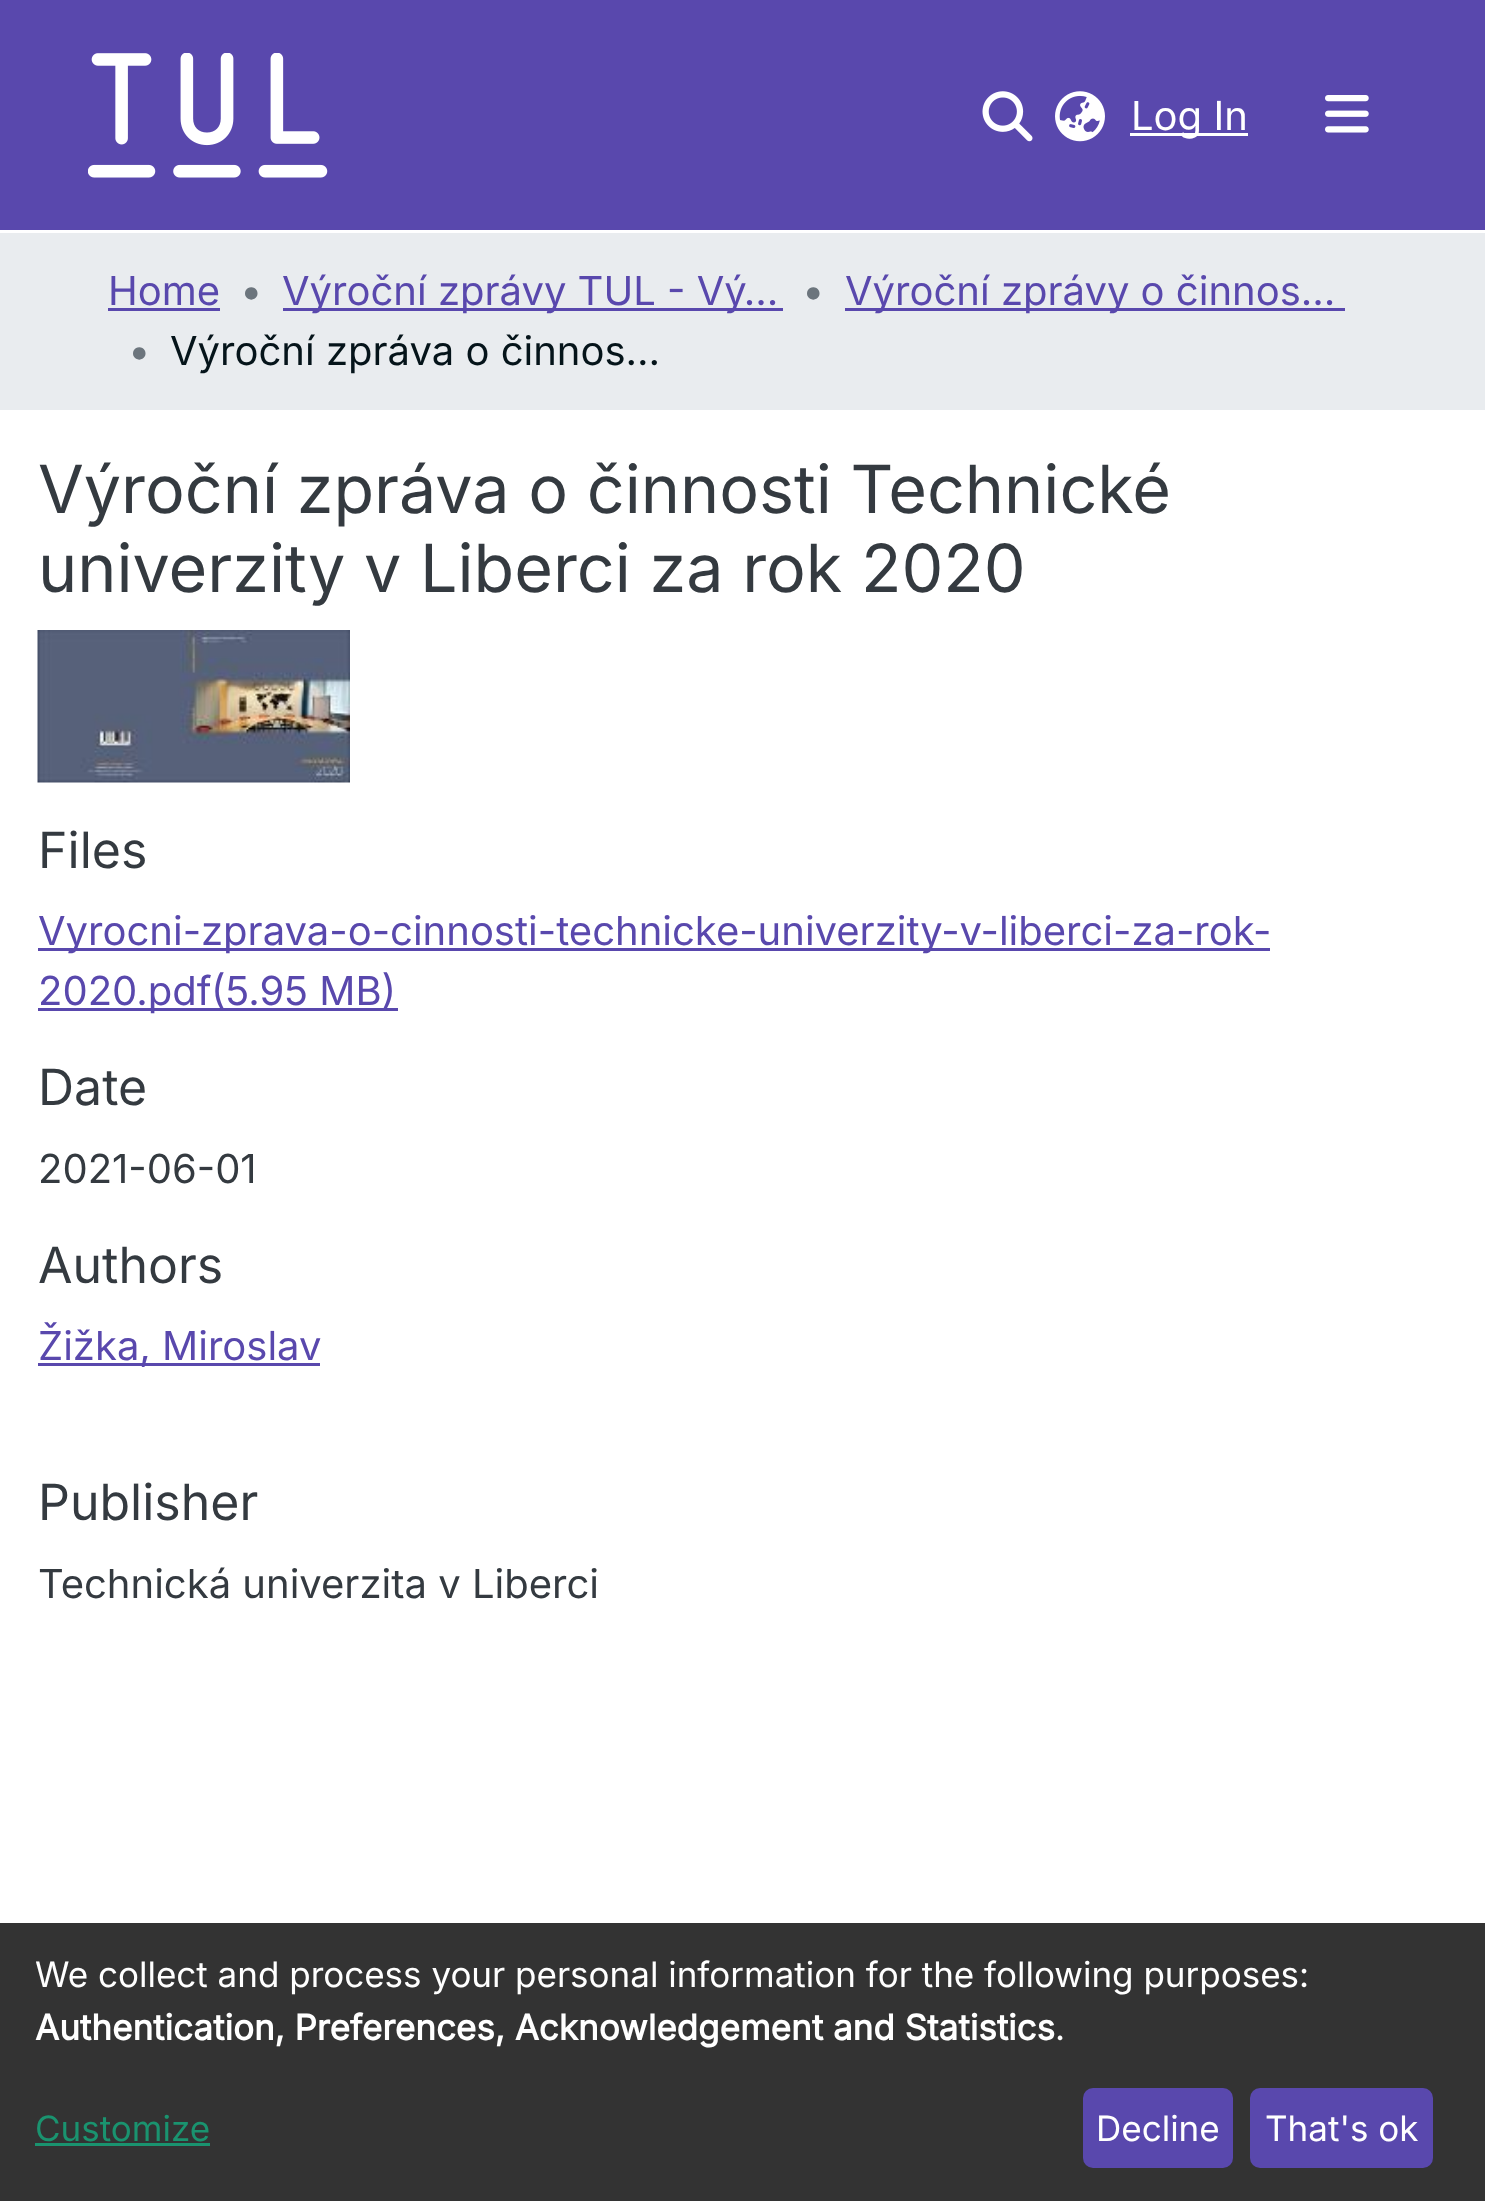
(async () => {
const canvas = document.querySelector("canvas")
canvas.width = 1485
canvas.height = 2201
const c = canvas.getContext("2d")
c.miterLimit = 4
c.fontKerning = "normal"
function T(s,x,y){c.fillText(s,x,y)}
function R(x,y,w,h){c.fillRect(x,y,w,h)}
function Q(x,y,w,h,r){c.beginPath();c.roundRect(x,y,w,h,r);c.fill()}
async function I(src,x,y,w,h){const img=new Image();img.src=src;await img.decode();c.drawImage(img,x,y,w,h)}
c.fillStyle="#fff"
R(0,0,1485,2201)
c.fillStyle="#5948ad"
R(0,0,1485,230)
await I("1.png",88,53,240,125)
await I("2.png",982,91,51,51)
await I("3.png",1055,91,50,51)
c.fillStyle="#fff"
R(1130,133,118,3)
c.font="40px Inter"
T("Log In",1131,130)
await I("4.png",1325,95,44,38)
c.fillStyle="#e9ecef"
R(0,233,1485,177)
c.fillStyle="#5948ad"
T("Home",108,305)
R(108,308,112,3)
c.fillStyle="#6c757d"
T("•",240,305)
c.fillStyle="#5948ad"
R(283,308,500,3)
T("Výroční zprávy TUL - Vý…",282,305)
c.fillStyle="#6c757d"
T("•",802,305)
c.fillStyle="#5948ad"
R(845,308,500,3)
T("Výroční zprávy o činnos…",845,305)
c.fillStyle="#6c757d"
T("•",128,365)
c.fillStyle="#05141a"
T("Výroční zpráva o činnos…",170,365)
c.font="66.4px Inter"
c.fillStyle="#343a40"
T("Výroční zpráva o činnosti Technické",38,513)
T("univerzity v Liberci za rok 2020",38,592)
await I("5.png",37,630,313,153)
c.font="50px Inter"
T("Files",38,868)
c.fillStyle="#5948ad"
R(38,948,1232,3)
c.font="40px Inter"
T("Vyrocni-zprava-o-cinnosti-technicke-univerzity-v-liberci-za-rok-",38,945)
R(38,1008,172,3)
T("2020.pdf",38,1005)
R(210,1008,188,3)
T("(5.95 MB)",211,1005)
c.font="50px Inter"
c.fillStyle="#343a40"
T("Date",38,1105)
c.font="40px Inter"
T("2021-06-01",38,1183)
c.font="50px Inter"
T("Authors",38,1283)
c.fillStyle="#5948ad"
R(38,1363,282,3)
c.font="40px Inter"
T("Žižka, Miroslav",38,1360)
c.font="50px Inter"
c.fillStyle="#343a40"
T("Publisher",38,1520)
c.font="40px Inter"
T("Technická univerzita v Liberci",38,1598)
c.fillStyle="#333"
R(0,1923,1485,278)
c.font="35px Inter"
c.fillStyle="#fff"
T("We collect and process your personal information for the following purposes:",35,1987)
c.font="bold 35px Inter"
T("Authentication, Preferences, Acknowledgement and Statistics",35,2040)
c.font="35px Inter"
T(".",1055,2040)
c.fillStyle="#1a936f"
T("Customize",35,2141)
R(35,2143,175,3)
c.fillStyle="#5948ad"
Q(1083,2088,150,80,10)
c.fillStyle="#fff"
T("Decline",1096,2141)
c.fillStyle="#5948ad"
Q(1250,2088,183,80,10)
c.fillStyle="#fff"
T("That's ok",1265,2141)
})()
